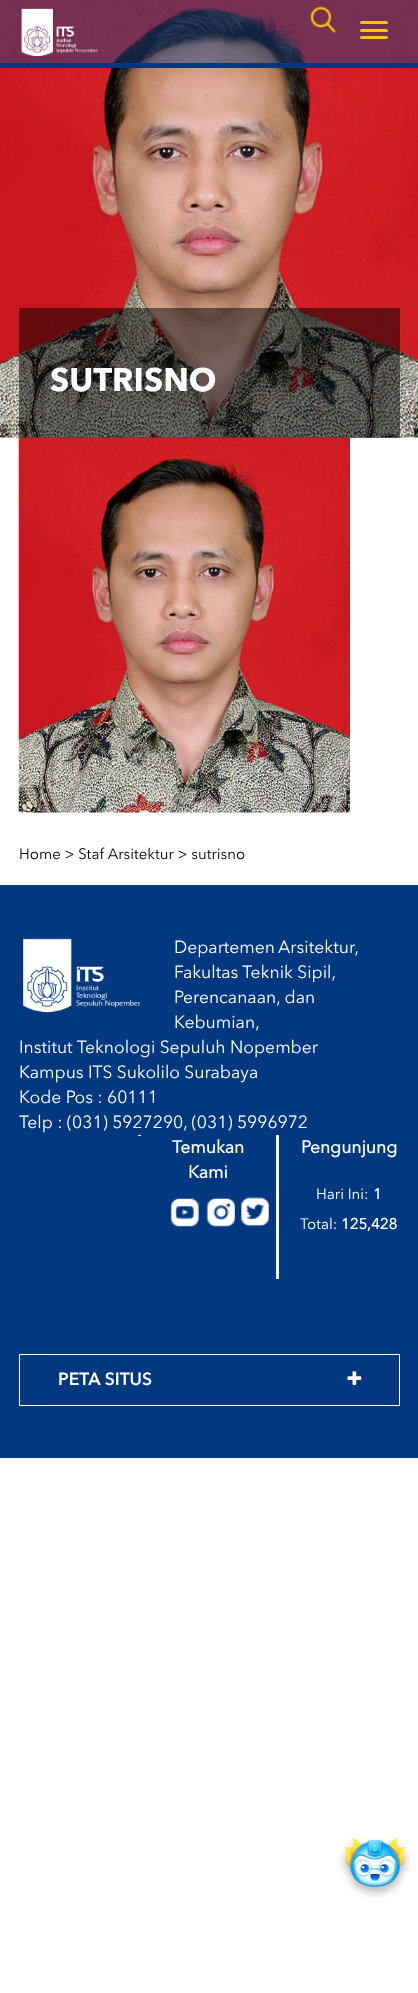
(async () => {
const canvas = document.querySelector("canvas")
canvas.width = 418
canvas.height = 1993
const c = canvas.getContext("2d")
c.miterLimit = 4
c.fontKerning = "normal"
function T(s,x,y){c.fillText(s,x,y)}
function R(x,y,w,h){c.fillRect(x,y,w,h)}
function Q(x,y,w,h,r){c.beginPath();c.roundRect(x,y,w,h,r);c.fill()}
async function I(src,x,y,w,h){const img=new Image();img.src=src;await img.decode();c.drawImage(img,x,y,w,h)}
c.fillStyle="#fff"
R(0,0,418,1993)
await I("3.png",0,0,418,438)
c.fillStyle="#20417f80"
R(0,0,418,63)
c.fillStyle="#013880"
R(0,63,418,5)
await I("1.png",310,6,27,27)
await I("2.png",21,8,77,49)
c.fillStyle="#ffc410"
Q(360,21,28,3,1.5)
Q(360,29,28,3,1.5)
Q(360,36,28,3,1.5)
await I("4.png",18,437,332,376)
c.fillStyle="#00000080"
R(19,308,381,130)
c.font="bold 32.5px 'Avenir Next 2'"
c.fillStyle="#fff"
T("SUTRISNO",50,391)
c.font="15px Avenir Next"
c.fillStyle="#000"
T("Home > Staf Arsitektur > sutrisno",19,859)
c.fillStyle="#013880"
R(0,885,418,573)
await I("5.png",23,938,118,75)
c.wordSpacing="-1px"
c.font="17.5px Avenir Next"
c.fillStyle="#fff"
T("Departemen Arsitektur,",174,953)
c.wordSpacing="0px"
T("Fakultas Teknik Sipil,",174,978)
T("Perencanaan, dan",174,1003)
T("Kebumian,",174,1028)
T("Institut Teknologi Sepuluh Nopember",19,1053)
T("Kampus ITS Sukolilo Surabaya",19,1078)
T("Kode Pos : 60111",19,1103)
T("Telp : (031) 5927290, (031) 5996972",19,1128)
R(138,1135,3,1)
R(276,1135,3,144)
c.font="bold 17.5px Avenir Next"
T("Temukan",172,1153)
T("Kami",188,1178)
await I("6.png",170,1198,29,29)
await I("7.png",206,1197,29,30)
await I("8.png",241,1197,28,30)
T("Pengunjung",301,1153)
c.font="15px Avenir Next"
T("Hari Ini:",316,1199)
c.font="bold 15px Avenir Next"
T("1",373,1199)
c.font="15px Avenir Next"
T("Total:",300,1229)
c.font="bold 15px Avenir Next"
T("125,428",341,1229)
c.strokeStyle="#fff"
c.strokeRect(19.5,1354.5,380,51)
c.font="600 17.5px Avenir Next"
T("PETA SITUS",58,1385)
await I("9.png",347,1371,15,14)
await I("10.png",340,1837,70,61)
})()
